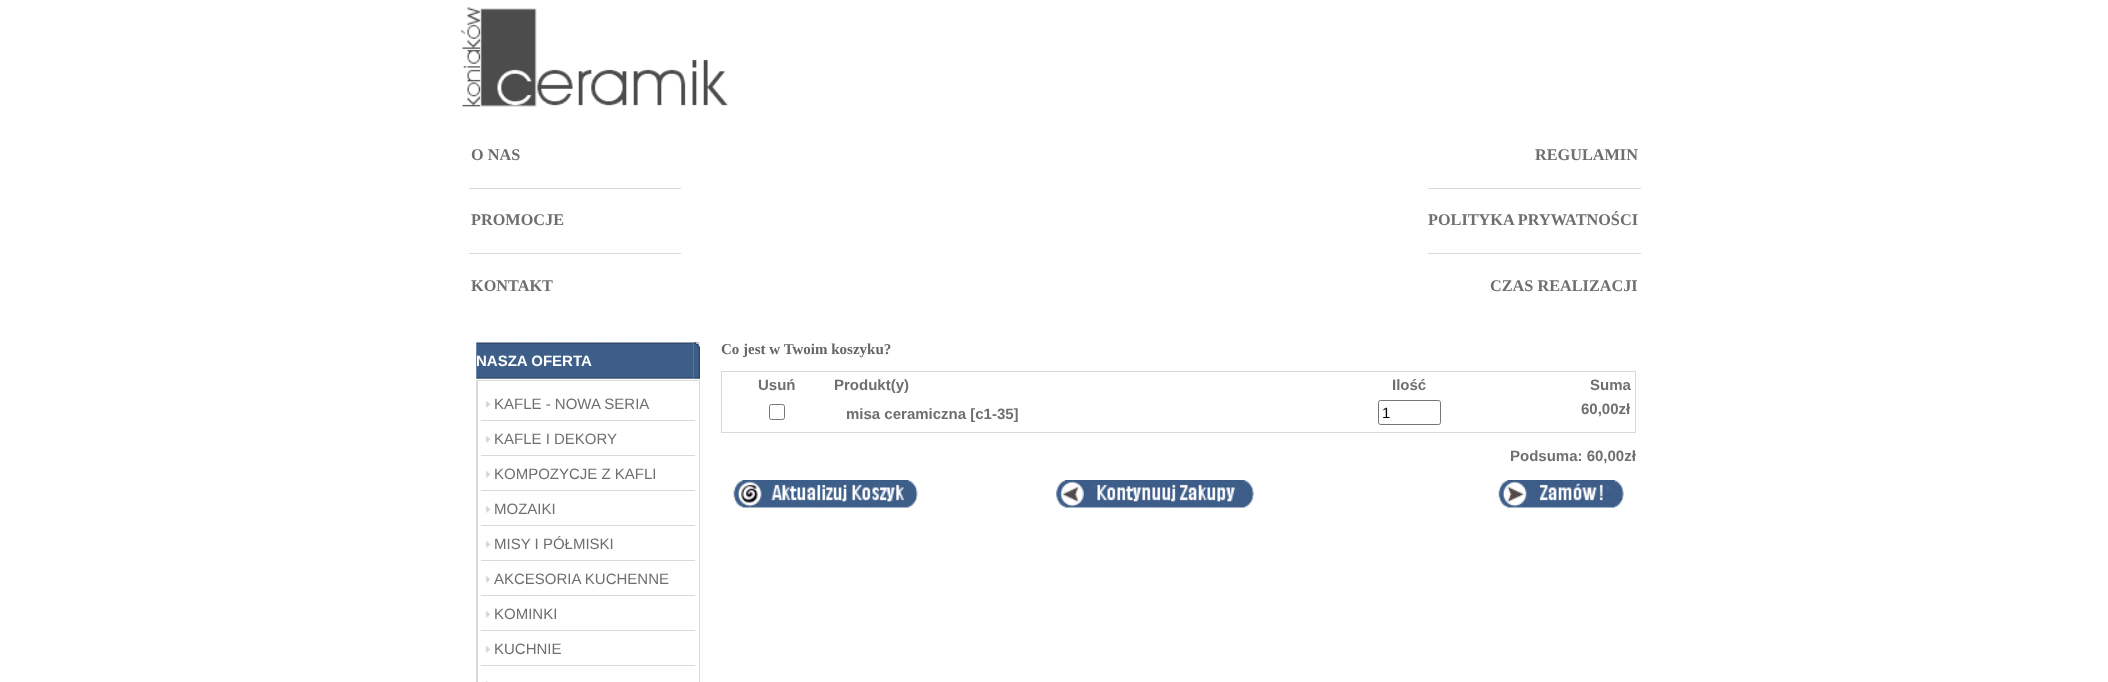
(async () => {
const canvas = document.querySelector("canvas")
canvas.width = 2108
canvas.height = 682
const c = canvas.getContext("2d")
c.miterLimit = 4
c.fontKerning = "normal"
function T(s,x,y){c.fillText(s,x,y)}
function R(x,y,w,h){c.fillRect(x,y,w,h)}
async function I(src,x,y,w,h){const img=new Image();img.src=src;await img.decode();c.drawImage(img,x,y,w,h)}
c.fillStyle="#fff"
R(0,0,2108,682)
await I("1.png",461,7,267,100)
c.font="bold 16.25px Liberation Serif"
c.fillStyle="#6f6f6f"
T("O NAS",471,160)
c.fillStyle="#d9d9da"
R(469,188,212,1)
c.fillStyle="#6f6f6f"
T("PROMOCJE",471,225)
c.fillStyle="#d9d9da"
R(469,253,212,1)
c.fillStyle="#6f6f6f"
T("KONTAKT",471,291)
c.fillStyle="#d9d9da"
R(1428,188,213,1)
c.fillStyle="#6f6f6f"
T("REGULAMIN",1535,160)
c.fillStyle="#d9d9da"
R(1428,253,213,1)
c.fillStyle="#6f6f6f"
T("POLITYKA PRYWATNOŚCI",1428,225)
T("CZAS REALIZACJI",1490,291)
await I("2.png",476,342,218,37)
c.font="bold 15px Liberation Sans"
c.fillStyle="#fff"
T("NASZA OFERTA",476,366)
await I("3.png",693,342,7,37)
await I("4.png",693,342,7,37)
c.fillStyle="#d9d9da"
R(476,380,224,302)
c.fillStyle="#fff"
R(478,381,221,301)
await I("5.png",485,401,6,7)
c.font="15px Liberation Sans"
c.fillStyle="#6f6f6f"
T("KAFLE - NOWA SERIA",494,409)
c.fillStyle="#d9d9da"
R(481,420,214,1)
await I("5.png",485,436,6,7)
c.fillStyle="#6f6f6f"
T("KAFLE I DEKORY",494,444)
c.fillStyle="#d9d9da"
R(481,455,214,1)
await I("5.png",485,471,6,7)
c.fillStyle="#6f6f6f"
T("KOMPOZYCJE Z KAFLI",494,479)
c.fillStyle="#d9d9da"
R(481,490,214,1)
await I("5.png",485,506,6,7)
c.fillStyle="#6f6f6f"
T("MOZAIKI",494,514)
c.fillStyle="#d9d9da"
R(481,525,214,1)
await I("5.png",485,541,6,7)
c.fillStyle="#6f6f6f"
T("MISY I PÓŁMISKI",494,549)
c.fillStyle="#d9d9da"
R(481,560,214,1)
await I("5.png",485,576,6,7)
c.fillStyle="#6f6f6f"
T("AKCESORIA KUCHENNE",494,584)
c.fillStyle="#d9d9da"
R(481,595,214,1)
await I("5.png",485,611,6,7)
c.fillStyle="#6f6f6f"
T("KOMINKI",494,619)
c.fillStyle="#d9d9da"
R(481,630,214,1)
await I("5.png",485,646,6,7)
c.fillStyle="#6f6f6f"
T("KUCHNIE",494,654)
c.fillStyle="#d9d9da"
R(481,665,214,1)
await I("6.png",485,681,3,1)
c.font="bold 15px Liberation Serif"
c.fillStyle="#666"
T("Co jest w Twoim koszyku?",721,354)
c.strokeStyle="#d9d9da"
c.strokeRect(721.5,371.5,914,61)
c.font="bold 15px Liberation Sans"
c.fillStyle="#6f6f6f"
T("Usuń",758,390)
T("Produkt(y)",834,390)
T("Ilość",1392,390)
T("Suma",1590,390)
c.beginPath()
c.roundRect(769.5,404.5,15,15,2)
c.strokeStyle="#767676"
c.stroke()
T("misa ceramiczna [c1-35]",846,419)
c.beginPath()
c.roundRect(1378.5,400.5,62,24,2)
c.stroke()
c.font="15px Liberation Sans"
c.fillStyle="#000"
T("1",1382,418)
c.font="bold 15px Liberation Sans"
c.fillStyle="#6f6f6f"
T("60,00zł",1581,414)
T("Podsuma: 60,00zł",1510,461)
await I("7.png",733,480,185,28)
await I("8.png",1056,480,198,28)
await I("9.png",1498,480,126,28)
})()
